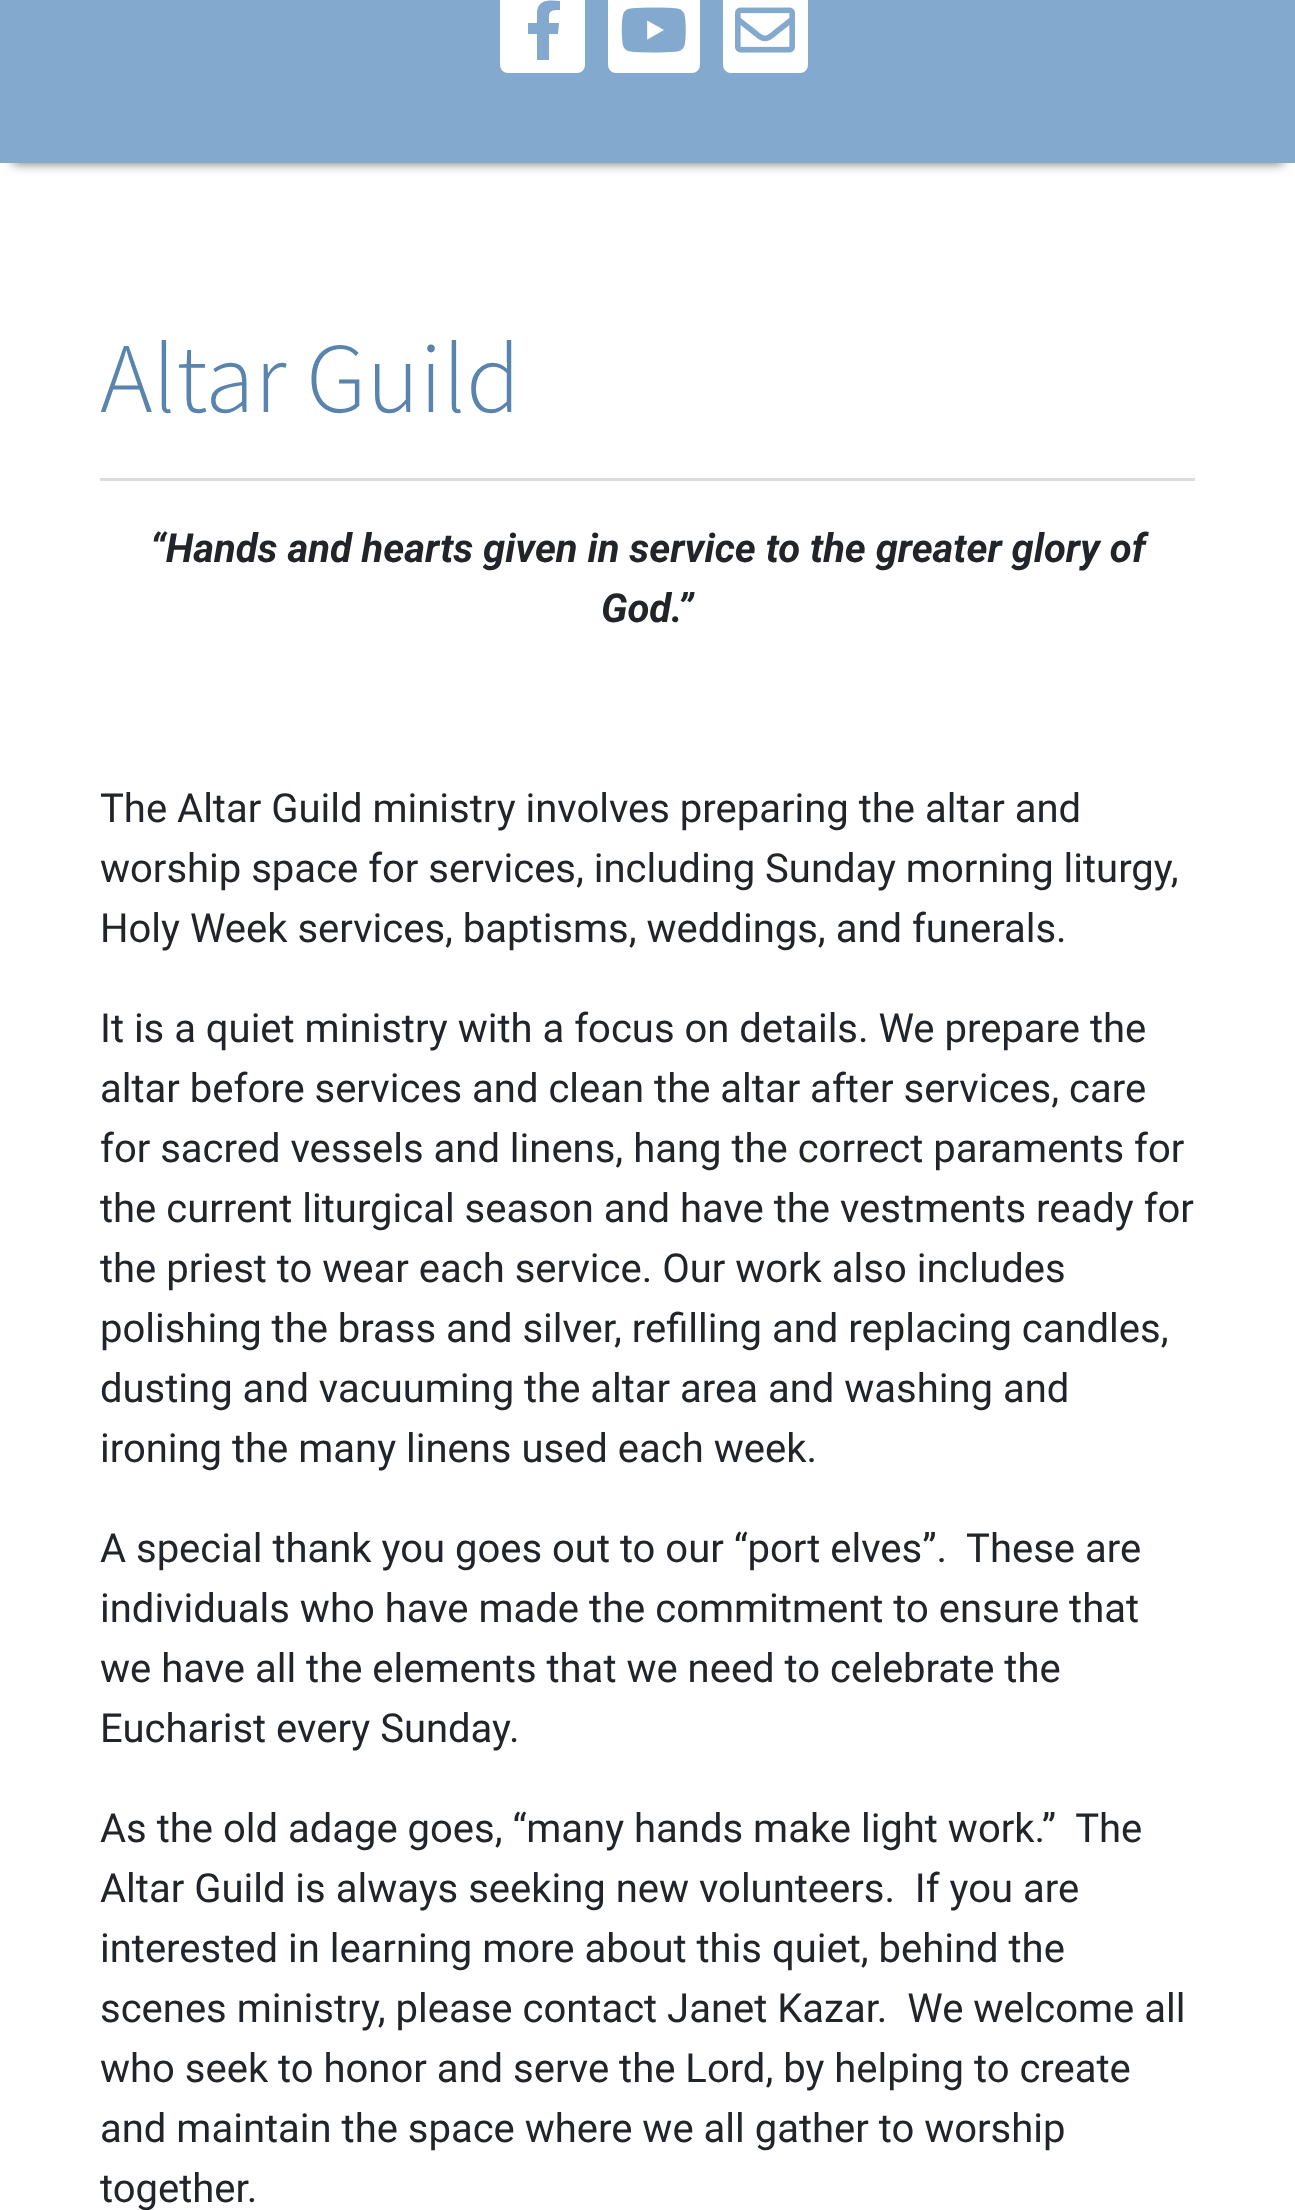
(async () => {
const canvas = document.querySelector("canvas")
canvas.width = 1295
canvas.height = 2210
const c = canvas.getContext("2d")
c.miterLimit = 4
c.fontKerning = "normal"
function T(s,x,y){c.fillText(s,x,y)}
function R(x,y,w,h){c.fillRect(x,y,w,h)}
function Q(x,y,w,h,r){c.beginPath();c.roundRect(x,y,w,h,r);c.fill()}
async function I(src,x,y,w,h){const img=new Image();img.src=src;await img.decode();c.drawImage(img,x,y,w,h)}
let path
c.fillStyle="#fff"
R(0,0,1295,2210)
c.fillStyle="#666"
c.filter="blur(6px)"
c.beginPath()
c.rect(13,-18,1270,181)
c.fill()
c.filter="none"
c.fillStyle="#83a9ce"
R(0,0,1295,163)
c.fillStyle="#fff"
Q(500,-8,85,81,8)
c.fillStyle="#83a9ce"
path = new Path2D("M558 34h-9v26h-12v-26h-9v-11h9v-12c2-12 13-11 23-10v9c-12 0-11 2-11 13h10z")
c.fill(path)
c.fillStyle="#fff"
Q(608,-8,92,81,8)
await I("1.png",621,7,65,46)
Q(723,-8,85,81,8)
await I("2.png",735,7,60,46)
c.fillStyle="#ddd"
R(100,478,1095,3)
c.font="300 100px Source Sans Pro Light"
c.fillStyle="#5984ae"
T("Altar Guild",100,412)
c.font="italic bold 40px Roboto"
c.fillStyle="#212529"
T("“Hands and hearts given in service to the greater glory of",150,562)
T("God.”",601,622)
c.font="40px Roboto"
T("The Altar Guild ministry involves preparing the altar and",100,822)
T("worship space for services, including Sunday morning liturgy,",100,882)
T("Holy Week services, baptisms, weddings, and funerals.",100,942)
T("It is a quiet ministry with a focus on details. We prepare the",100,1042)
T("altar before services and clean the altar after services, care",100,1102)
T("for sacred vessels and linens, hang the correct paraments for",100,1162)
T("the current liturgical season and have the vestments ready for",100,1222)
T("the priest to wear each service. Our work also includes",100,1282)
T("polishing the brass and silver, refilling and replacing candles,",100,1342)
T("dusting and vacuuming the altar area and washing and",100,1402)
T("ironing the many linens used each week.",100,1462)
T("A special thank you goes out to our “port elves”.  These are",100,1562)
T("individuals who have made the commitment to ensure that",100,1622)
T("we have all the elements that we need to celebrate the",100,1682)
T("Eucharist every Sunday.",100,1742)
T("As the old adage goes, “many hands make light work.”  The",100,1842)
T("Altar Guild is always seeking new volunteers.  If you are",100,1902)
T("interested in learning more about this quiet, behind the",100,1962)
T("scenes ministry, please contact Janet Kazar.  We welcome all",100,2022)
T("who seek to honor and serve the Lord, by helping to create",100,2082)
T("and maintain the space where we all gather to worship",100,2142)
T("together.",100,2202)
})()
